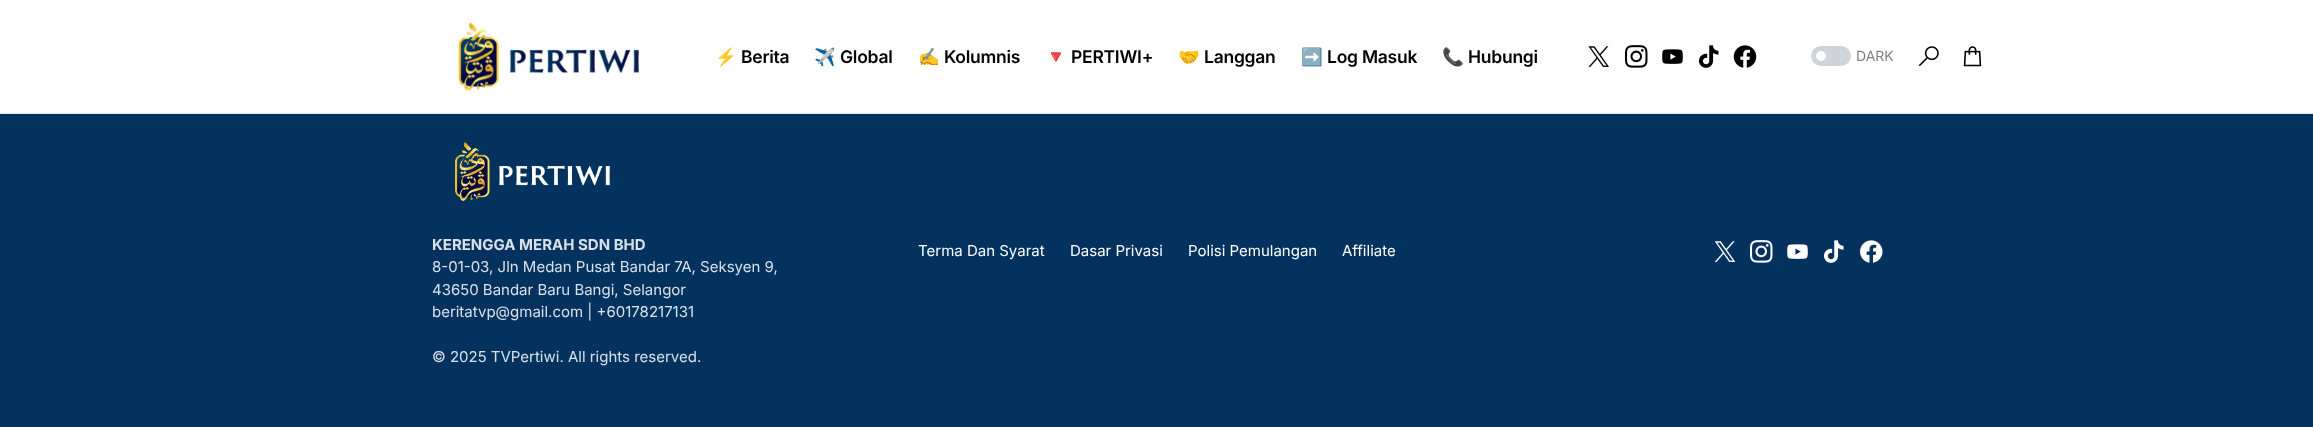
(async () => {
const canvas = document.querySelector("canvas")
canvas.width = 2313
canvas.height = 427
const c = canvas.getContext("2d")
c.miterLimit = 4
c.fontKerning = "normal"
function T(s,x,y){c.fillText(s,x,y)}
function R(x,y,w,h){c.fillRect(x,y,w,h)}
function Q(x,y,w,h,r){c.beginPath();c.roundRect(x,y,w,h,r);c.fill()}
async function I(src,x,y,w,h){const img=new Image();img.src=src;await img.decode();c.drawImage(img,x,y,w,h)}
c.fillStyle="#04325f"
R(0,0,2313,427)
c.fillStyle="#fff"
R(0,0,2313,113)
c.fillStyle="#e9ecef"
R(0,113,2313,1)
await I("1.png",458,22,181,70)
c.letterSpacing="-0.25px"
c.font="bold 17.5px Noto Color Emoji"
c.fillStyle="#000"
T("⚡",715,63)
c.font="600 17.5px Inter"
T("Berita",741,63)
c.font="bold 17.5px Noto Color Emoji"
T("✈️",814,63)
c.font="600 17.5px Inter"
T("Global",840,63)
c.font="bold 17.5px Noto Color Emoji"
T("✍️",918,63)
c.font="600 17.5px Inter"
T("Kolumnis",944,63)
c.font="bold 17.5px Noto Color Emoji"
T("🔻",1045,63)
c.font="600 17.5px Inter"
T("PERTIWI+",1071,63)
c.font="bold 17.5px Noto Color Emoji"
T("🤝",1178,63)
c.font="600 17.5px Inter"
T("Langgan",1204,63)
c.font="bold 17.5px Noto Color Emoji"
T("➡️",1301,63)
c.font="600 17.5px Inter"
T("Log Masuk",1327,63)
c.font="bold 17.5px Noto Color Emoji"
T("📞",1442,63)
c.font="600 17.5px Inter"
T("Hubungi",1468,63)
await I("2.png",1588,46,21,21)
await I("3.png",1625,45,23,23)
await I("4.png",1662,49,21,15)
await I("5.png",1699,45,20,23)
await I("6.png",1733,45,24,23)
c.fillStyle="#ced4da"
Q(1811,46,40,20,10)
c.fillStyle="#fff"
c.beginPath()
c.arc(1821,56,5,0,7)
c.fill()
c.letterSpacing="0px"
c.font="14px Inter"
c.fillStyle="#818181"
T("DARK",1856,61)
await I("7.png",1918,46,21,21)
await I("8.png",1963,46,19,21)
await I("9.png",455,142,155,59)
c.font="bold 15px Inter"
c.fillStyle="#d9e0e7"
T("KERENGGA MERAH SDN BHD",432,250)
c.font="15px Inter"
T("8-01-03, Jln Medan Pusat Bandar 7A, Seksyen 9,",432,272)
T("43650 Bandar Baru Bangi, Selangor",432,295)
T("beritatvp@gmail.com | +60178217131",432,317)
T("© 2025 TVPertiwi. All rights reserved.",432,362)
c.fillStyle="#fff"
T("Terma Dan Syarat",918,256)
T("Dasar Privasi",1070,256)
T("Polisi Pemulangan",1188,256)
T("Affiliate",1342,256)
await I("10.png",1714,241,22,21)
await I("11.png",1750,240,23,23)
await I("12.png",1787,244,21,15)
await I("13.png",1824,240,20,23)
await I("14.png",1860,240,23,23)
})()
